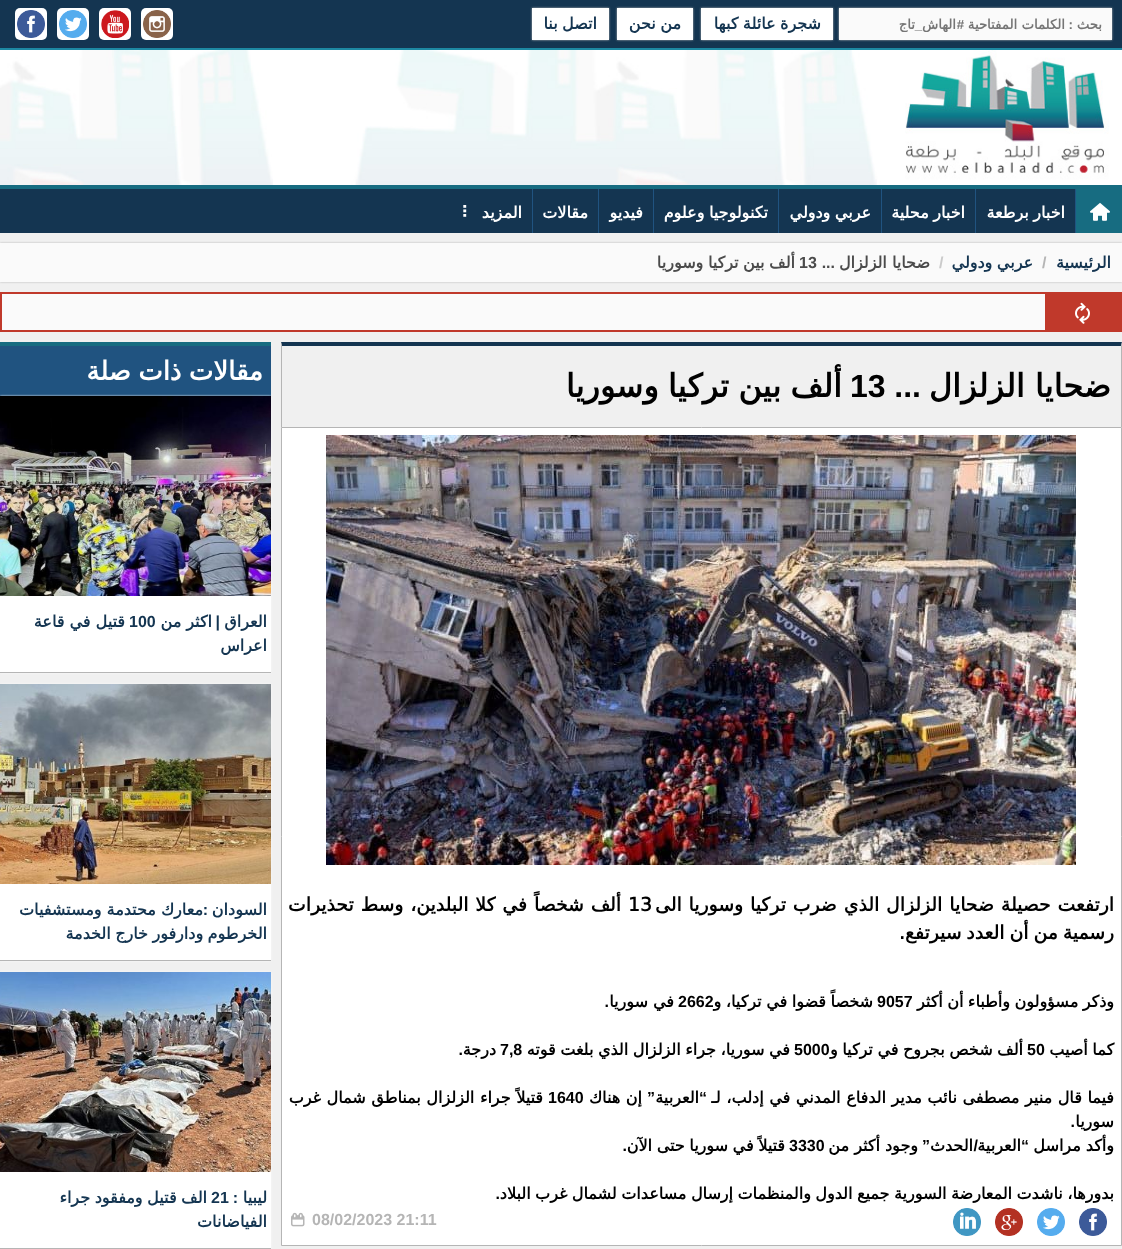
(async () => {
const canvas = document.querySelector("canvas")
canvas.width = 1122
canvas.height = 1249
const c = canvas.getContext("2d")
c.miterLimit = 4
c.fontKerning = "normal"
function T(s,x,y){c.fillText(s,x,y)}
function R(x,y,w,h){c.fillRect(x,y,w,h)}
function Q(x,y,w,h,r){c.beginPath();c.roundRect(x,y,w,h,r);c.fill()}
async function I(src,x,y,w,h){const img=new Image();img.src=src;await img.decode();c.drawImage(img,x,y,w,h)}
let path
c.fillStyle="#f0f0f0"
R(0,0,1122,1249)
c.fillStyle="#fff"
R(1109,50,13,135)
c.fillStyle="#143551"
R(0,0,1122,48)
c.fillStyle="#1d88a2"
R(0,48,1122,2)
c.fillStyle="#b5b5b5"
c.filter="blur(1px)"
c.beginPath()
c.rect(839,8,273,32)
c.fill()
c.filter="none"
c.fillStyle="#fafafa"
R(839,8,273,32)
c.direction="rtl"
c.font="bold 13.25px DejaVu Sans"
c.fillStyle="#757575"
T("بحث",1102,29)
c.font="bold 13.25px Liberation Sans"
T(":",1073,29)
c.font="bold 13.25px DejaVu Sans"
T("الكلمات المفتاحية",1065,29)
c.font="bold 13.25px Liberation Sans"
T("#",964,29)
c.save()
c.beginPath()
c.rect(839,17,273,15)
c.clip()
c.font="bold 13.25px DejaVu Sans"
T("الهاش",956,29)
T("تاج",915,29)
c.restore()
T("_",922,29)
c.fillStyle="#b5b5b5"
c.filter="blur(1px)"
c.beginPath()
c.rect(701,8,132,32)
c.fill()
c.filter="none"
c.fillStyle="#fff"
R(701,8,132,32)
c.wordSpacing="-0.6px"
c.font="bold 16px DejaVu Sans"
c.fillStyle="#143551"
T("شجرة عائلة كبها",821,29)
c.fillStyle="#b5b5b5"
c.filter="blur(1px)"
c.beginPath()
c.rect(617,8,76,32)
c.fill()
c.filter="none"
c.fillStyle="#fff"
R(617,8,76,32)
c.fillStyle="#143551"
T("من نحن",681,29)
c.fillStyle="#b5b5b5"
c.filter="blur(1px)"
c.beginPath()
c.rect(532,8,77,32)
c.fill()
c.filter="none"
c.fillStyle="#fff"
R(532,8,77,32)
c.fillStyle="#143551"
T("اتصل بنا",597,29)
c.fillStyle="#fff"
Q(141,8,32,32,5)
await I("1.png",143,10,28,28)
Q(99,8,32,32,5)
await I("2.png",101,10,28,28)
Q(57,8,32,32,5)
await I("3.png",59,10,28,28)
Q(15,8,32,32,5)
await I("4.png",17,10,28,28)
await I("5.png",0,50,1109,135)
c.fillStyle="#176c81"
R(0,185,1122,4)
c.fillStyle="#143551"
R(0,189,1075,44)
c.fillStyle="#176c81"
R(1076,189,46,44)
c.fillStyle="#205380"
R(1075,189,1,44)
await I("6.png",1090,202,20,19)
R(975,189,1,44)
c.fillStyle="#fff"
T("اخبار برطعة",1065,218)
c.fillStyle="#205380"
R(881,189,1,44)
c.fillStyle="#fff"
T("اخبار محلية",965,218)
c.fillStyle="#205380"
R(778,189,1,44)
c.fillStyle="#fff"
T("عربي ودولي",871,218)
c.fillStyle="#205380"
R(653,189,1,44)
c.fillStyle="#fff"
T("تكنولوجيا وعلوم",768,218)
c.fillStyle="#205380"
R(598,189,1,44)
c.wordSpacing="0px"
c.fillStyle="#fff"
T("فيديو",643,218)
c.fillStyle="#205380"
R(532,189,1,44)
c.fillStyle="#fff"
T("مقالات",588,218)
T("المزيد",522,218)
c.direction="ltr"
T("⠇",461,218)
c.fillStyle="#b5b5b5"
c.filter="blur(1px)"
c.beginPath()
c.rect(0,243,1122,39)
c.fill()
c.filter="none"
c.fillStyle="#fafafa"
R(0,243,1122,39)
c.direction="rtl"
c.fillStyle="#143551"
T("الرئيسية",1111,268)
c.direction="ltr"
c.font="bold 16px Liberation Sans"
c.fillStyle="#b5b5b5"
T("/",1042,268)
c.wordSpacing="-0.6px"
c.direction="rtl"
c.font="bold 16px DejaVu Sans"
c.fillStyle="#143551"
T("عربي ودولي",1033,268)
c.wordSpacing="0px"
c.direction="ltr"
c.font="bold 16px Liberation Sans"
c.fillStyle="#cacaca"
T("/",939,268)
c.direction="rtl"
c.font="bold 16px DejaVu Sans"
c.fillStyle="#4b4b4b"
T("ضحايا الزلزال",930,268)
c.font="bold 16px Liberation Sans"
T("...",835,268)
c.direction="ltr"
T("13",799,268)
c.wordSpacing="-0.5px"
c.direction="rtl"
c.font="bold 16px DejaVu Sans"
T("ألف بين تركيا وسوريا",795,268)
c.fillStyle="#c0392b"
R(0,292,1122,40)
await I("7.png",1075,302,15,22)
c.fillStyle="#fafafa"
R(2,294,1043,36)
c.fillStyle="#143551"
path = new Path2D("M281 342h841l-1 4h-839z")
c.fill(path)
c.fillStyle="#b5b5b5"
path = new Path2D("M1122 342v85h-1v-81z")
c.fill(path)
path = new Path2D("M281 427v-85l1 4v81z")
c.fill(path)
c.wordSpacing="0px"
c.font="bold 32px DejaVu Sans"
c.fillStyle="#000"
T("ضحايا الزلزال",1111,397)
c.font="bold 32px Liberation Sans"
T("...",921,397)
c.direction="ltr"
T("13",850,397)
c.wordSpacing="-1px"
c.direction="rtl"
c.font="bold 32px DejaVu Sans"
T("ألف بين تركيا وسوريا",842,397)
c.fillStyle="#fff"
c.beginPath()
c.rect(281.5,427.5,840,818)
c.fill()
c.strokeStyle="#b5b5b5"
c.stroke()
await I("8.png",326,435,750,430)
c.wordSpacing="1px"
c.font="bold 18.75px DejaVu Sans"
c.fillStyle="#000"
T("ارتفعت حصيلة ضحايا الزلزال الذي ضرب تركيا وسوريا الى",1114,911)
c.wordSpacing="0px"
c.direction="ltr"
T("13",628,911)
c.wordSpacing="1px"
c.direction="rtl"
T("ألف شخصاً في كلا البلدين، وسط تحذيرات",621,911)
c.wordSpacing="-1px"
T("رسمية من أن العدد سيرتفع.",1114,939)
c.wordSpacing="-0.6px"
c.font="bold 16px DejaVu Sans"
T("وذكر مسؤولون وأطباء أن أكثر",1114,1007)
c.wordSpacing="0px"
c.direction="ltr"
c.font="bold 16px Liberation Sans"
T("9057",877,1007)
T("2662",678,1007)
c.wordSpacing="-0.5px"
c.direction="rtl"
c.font="bold 16px DejaVu Sans"
T("شخصاً قضوا في تركيا، و",873,1007)
c.wordSpacing="0px"
T("في سوريا",674,1007)
c.font="bold 16px Liberation Sans"
T(".",609,1007)
c.wordSpacing="-0.6px"
c.font="bold 16px DejaVu Sans"
T("كما أصيب",1114,1055)
c.wordSpacing="0px"
c.direction="ltr"
c.font="bold 16px Liberation Sans"
T("50",1027,1055)
T("5000",794,1055)
c.wordSpacing="-0.5px"
c.direction="rtl"
c.font="bold 16px DejaVu Sans"
T("ألف شخص بجروح في تركيا و",1023,1055)
T("في سوريا، جراء الزلزال الذي بلغت قوته",790,1055)
c.wordSpacing="0px"
c.direction="ltr"
c.font="bold 16px Liberation Sans"
T("7,8",500,1055)
c.direction="rtl"
c.font="bold 16px DejaVu Sans"
T("درجة",496,1055)
c.font="bold 16px Liberation Sans"
T(".",463,1055)
c.wordSpacing="0.5px"
c.font="bold 16px DejaVu Sans"
T("فيما قال منير مصطفى نائب مدير الدفاع المدني في إدلب، لـ",1114,1103)
c.wordSpacing="0px"
c.font="bold 16px Liberation Sans"
T("“",707,1103)
c.font="bold 16px DejaVu Sans"
T("العربية",699,1103)
c.font="bold 16px Liberation Sans"
T("”",655,1103)
c.wordSpacing="0.5px"
c.font="bold 16px DejaVu Sans"
T("إن هناك",642,1103)
c.wordSpacing="0px"
c.direction="ltr"
c.font="bold 16px Liberation Sans"
T("1640",548,1103)
c.wordSpacing="0.5px"
c.direction="rtl"
c.font="bold 16px DejaVu Sans"
T("قتيلاً جراء الزلزال بمناطق شمال غرب",543,1103)
c.wordSpacing="0px"
T("سوريا",1114,1127)
c.font="bold 16px Liberation Sans"
T(".",1075,1127)
c.font="bold 16px DejaVu Sans"
T("وأكد مراسل",1114,1151)
c.font="bold 16px Liberation Sans"
T("“",1029,1151)
c.font="bold 16px DejaVu Sans"
T("العربية",1021,1151)
c.font="bold 16px Liberation Sans"
T("/",978,1151)
c.font="bold 16px DejaVu Sans"
T("الحدث",973,1151)
c.font="bold 16px Liberation Sans"
T("”",930,1151)
c.font="bold 16px DejaVu Sans"
T("وجود أكثر من",918,1151)
c.direction="ltr"
c.font="bold 16px Liberation Sans"
T("3330",789,1151)
c.wordSpacing="-0.5px"
c.direction="rtl"
c.font="bold 16px DejaVu Sans"
T("قتيلاً في سوريا حتى الآن",785,1151)
c.wordSpacing="0px"
c.font="bold 16px Liberation Sans"
T(".",627,1151)
c.wordSpacing="-0.6px"
c.font="bold 16px DejaVu Sans"
T("بدورها، ناشدت المعارضة السورية جميع الدول والمنظمات إرسال مساعدات لشمال غرب البلاد",1114,1199)
c.wordSpacing="0px"
c.font="bold 16px Liberation Sans"
T(".",500,1199)
await I("4.png",1079,1208,28,28)
await I("9.png",1037,1208,28,28)
await I("10.png",995,1208,28,28)
await I("11.png",953,1208,28,28)
c.direction="ltr"
c.fillStyle="#b5b5b5"
T("08/02/2023 21:11",312,1225)
await I("12.png",291,1212,14,15)
c.fillStyle="#205380"
R(0,346,271,50)
c.fillStyle="#176c81"
R(0,342,271,4)
c.wordSpacing="-1px"
c.direction="rtl"
c.font="bold 26px DejaVu Sans"
c.fillStyle="#fff"
T("مقالات ذات صلة",263,380)
c.fillStyle="#fafafa"
c.filter="blur(1px)"
c.beginPath()
c.rect(0,396,271,277)
c.fill()
c.filter="none"
c.fillStyle="#fff"
R(0,596,271,76)
c.fillStyle="#b5b5b5"
R(0,672,271,1)
await I("13.png",0,396,271,200)
c.wordSpacing="0px"
c.font="bold 16px DejaVu Sans"
c.fillStyle="#143551"
T("العراق",267,627)
c.font="bold 16px Liberation Sans"
T("|",220,627)
c.font="bold 16px DejaVu Sans"
T("اكثر من",212,627)
c.direction="ltr"
c.font="bold 16px Liberation Sans"
T("100",129,627)
c.direction="rtl"
c.font="bold 16px DejaVu Sans"
T("قتيل في قاعة",125,627)
T("اعراس",267,651)
c.fillStyle="#fafafa"
c.filter="blur(1px)"
c.beginPath()
c.rect(0,684,271,277)
c.fill()
c.filter="none"
c.fillStyle="#fff"
R(0,884,271,76)
c.fillStyle="#b5b5b5"
R(0,960,271,1)
await I("14.png",0,684,271,200)
c.fillStyle="#143551"
T("السودان",267,915)
c.font="bold 16px Liberation Sans"
T(":",208,915)
c.font="bold 16px DejaVu Sans"
T("معارك محتدمة ومستشفيات",203,915)
c.wordSpacing="-0.6px"
T("الخرطوم ودارفور خارج الخدمة",267,939)
c.fillStyle="#fafafa"
c.filter="blur(1px)"
c.beginPath()
c.rect(0,972,271,277)
c.fill()
c.filter="none"
c.fillStyle="#fff"
R(0,1172,271,76)
c.fillStyle="#b5b5b5"
R(0,1248,271,1)
await I("15.png",0,972,271,200)
c.wordSpacing="0px"
c.fillStyle="#143551"
T("ليبيا",267,1203)
c.font="bold 16px Liberation Sans"
T(":",238,1203)
c.direction="ltr"
T("21",211,1203)
c.wordSpacing="-0.5px"
c.direction="rtl"
c.font="bold 16px DejaVu Sans"
T("الف قتيل ومفقود جراء",207,1203)
c.wordSpacing="0px"
T("الفياضانات",267,1227)
})()
